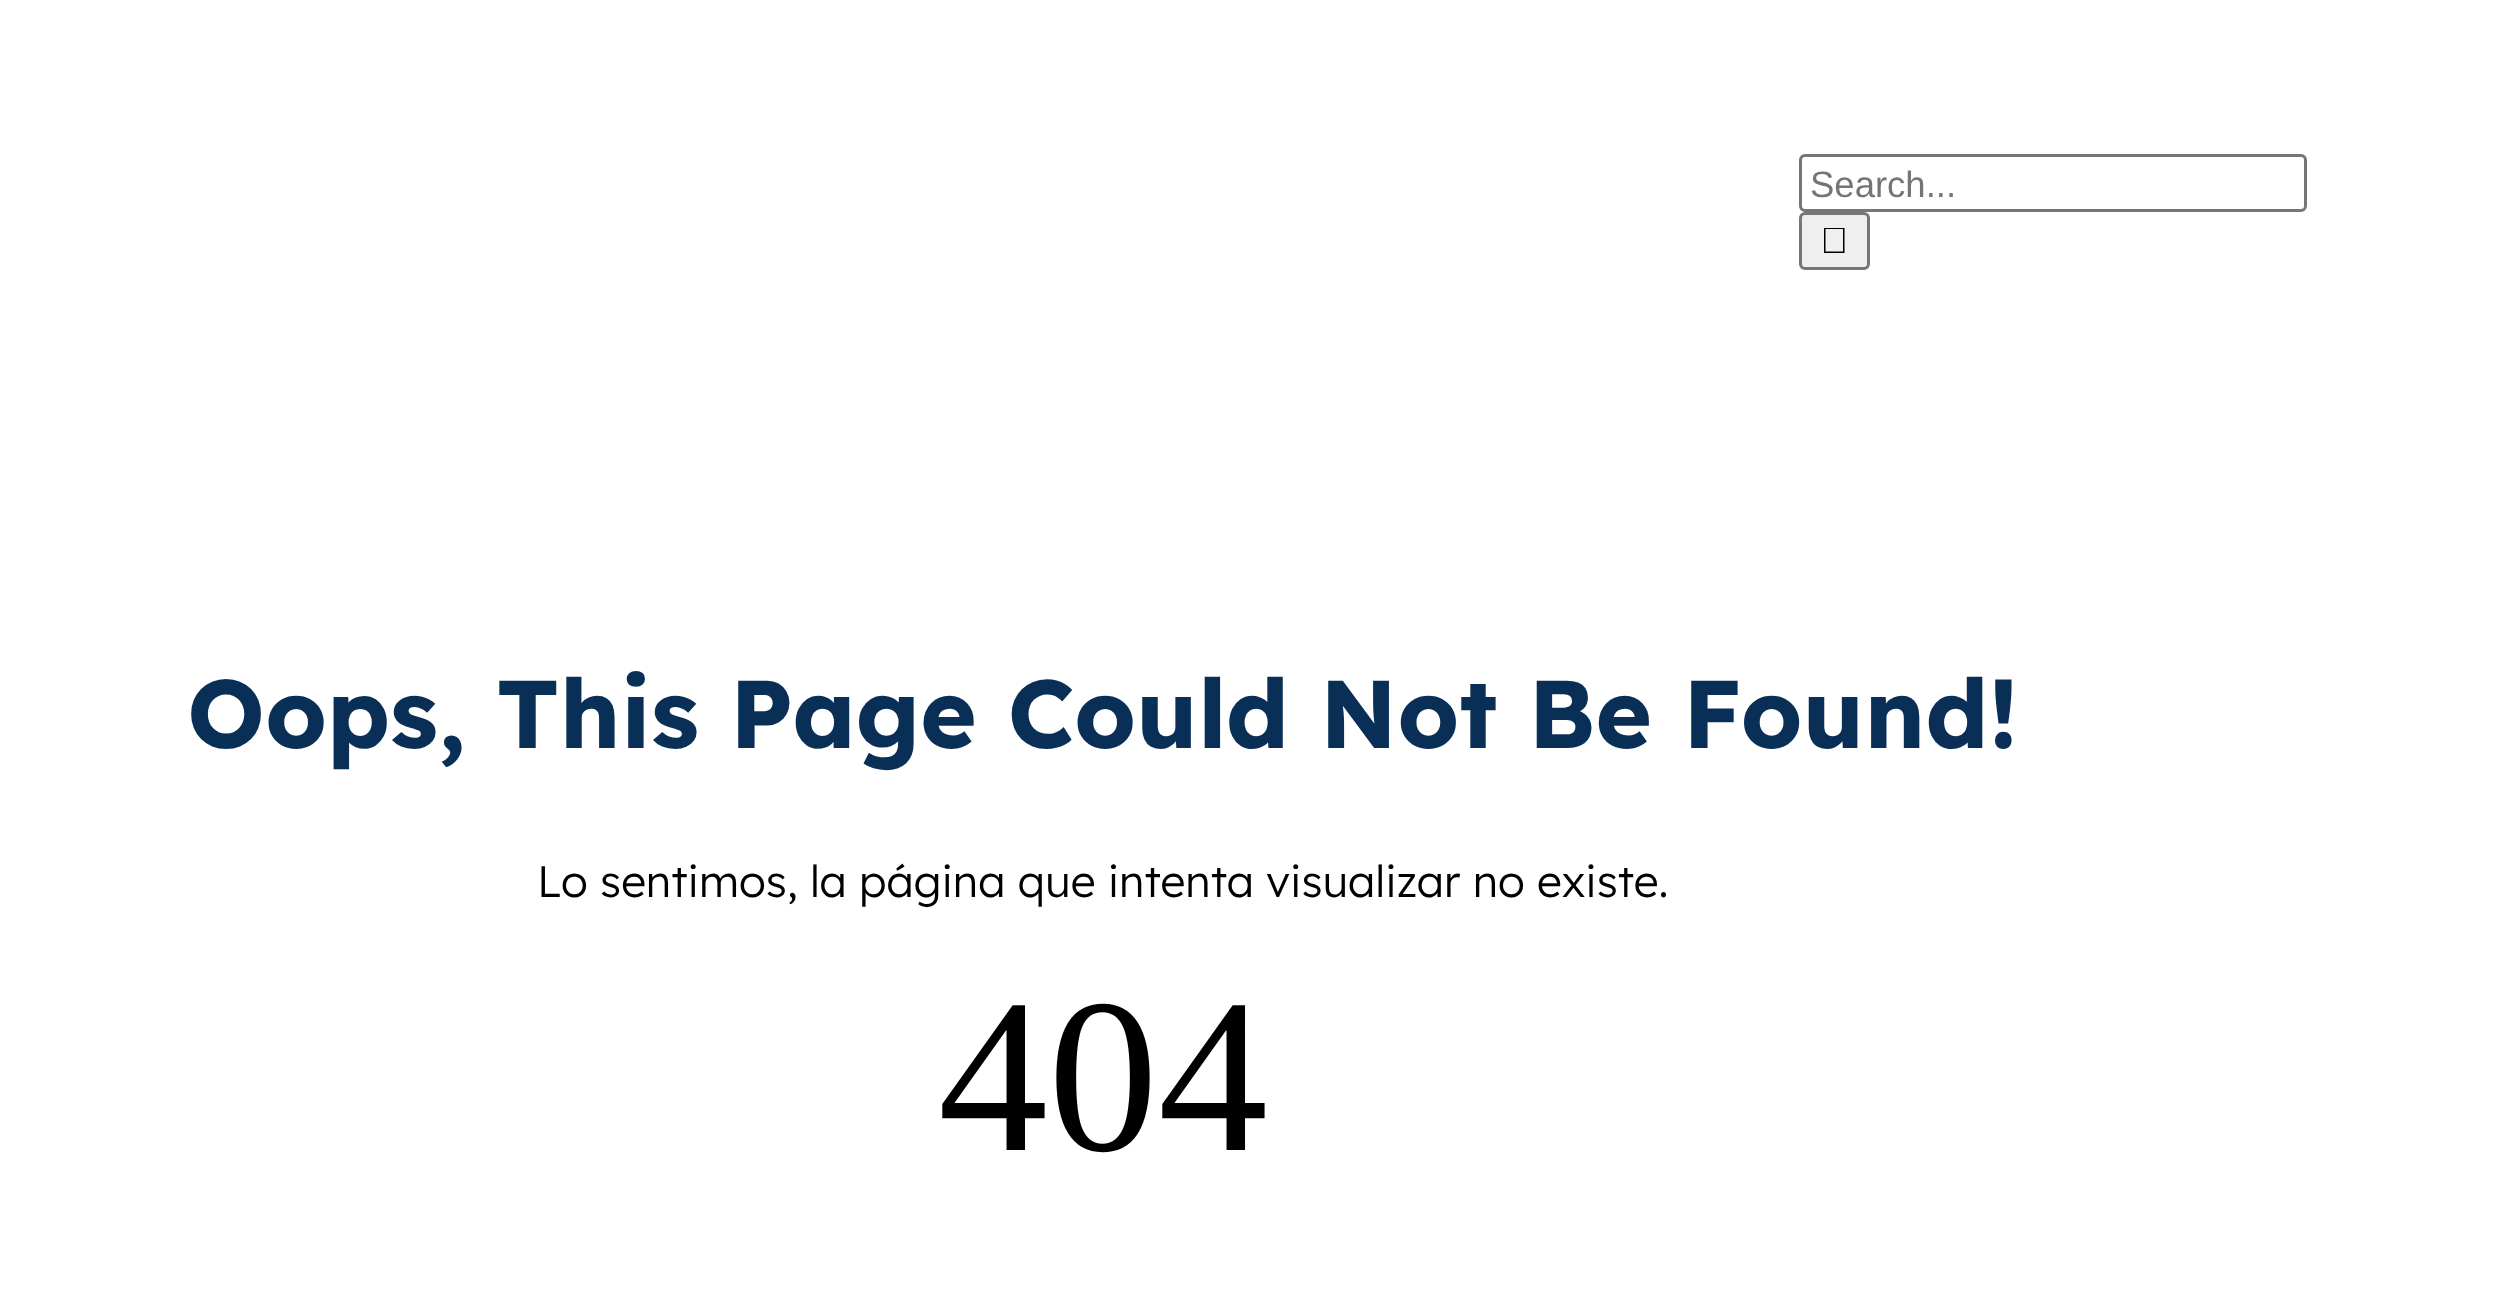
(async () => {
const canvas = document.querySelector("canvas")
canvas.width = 2494
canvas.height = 1299
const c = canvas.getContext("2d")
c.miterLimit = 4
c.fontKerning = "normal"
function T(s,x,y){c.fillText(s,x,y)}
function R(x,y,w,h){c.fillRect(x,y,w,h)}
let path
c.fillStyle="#fff"
R(0,0,2494,1299)
c.beginPath()
c.roundRect(1800.5,155.5,505,55,4.5)
c.strokeStyle="#767676"
c.lineWidth=3
c.stroke()
c.font="36.5px Liberation Sans"
c.fillStyle="#757575"
T("Search...",1810,197)
c.fillStyle="#efefef"
c.beginPath()
c.roundRect(1800.5,213.5,68,55,4.5)
c.fill()
c.stroke()
c.fillStyle="#000"
path = new Path2D("M1824 228h20.5v25h-20.5zm1.5 1v22.5h17.5v-22.5z")
c.fill(path)
c.font="bold 96.25px Lexend"
c.fillStyle="#092f57"
T("Oops, This Page Could Not Be Found!",187,748)
c.font="300 44px Lexend"
c.fillStyle="#000"
T("Lo sentimos, la página que intenta visualizar no existe.",537,897)
c.font="220px Liberation Serif"
T("404",938,1150)
})()
